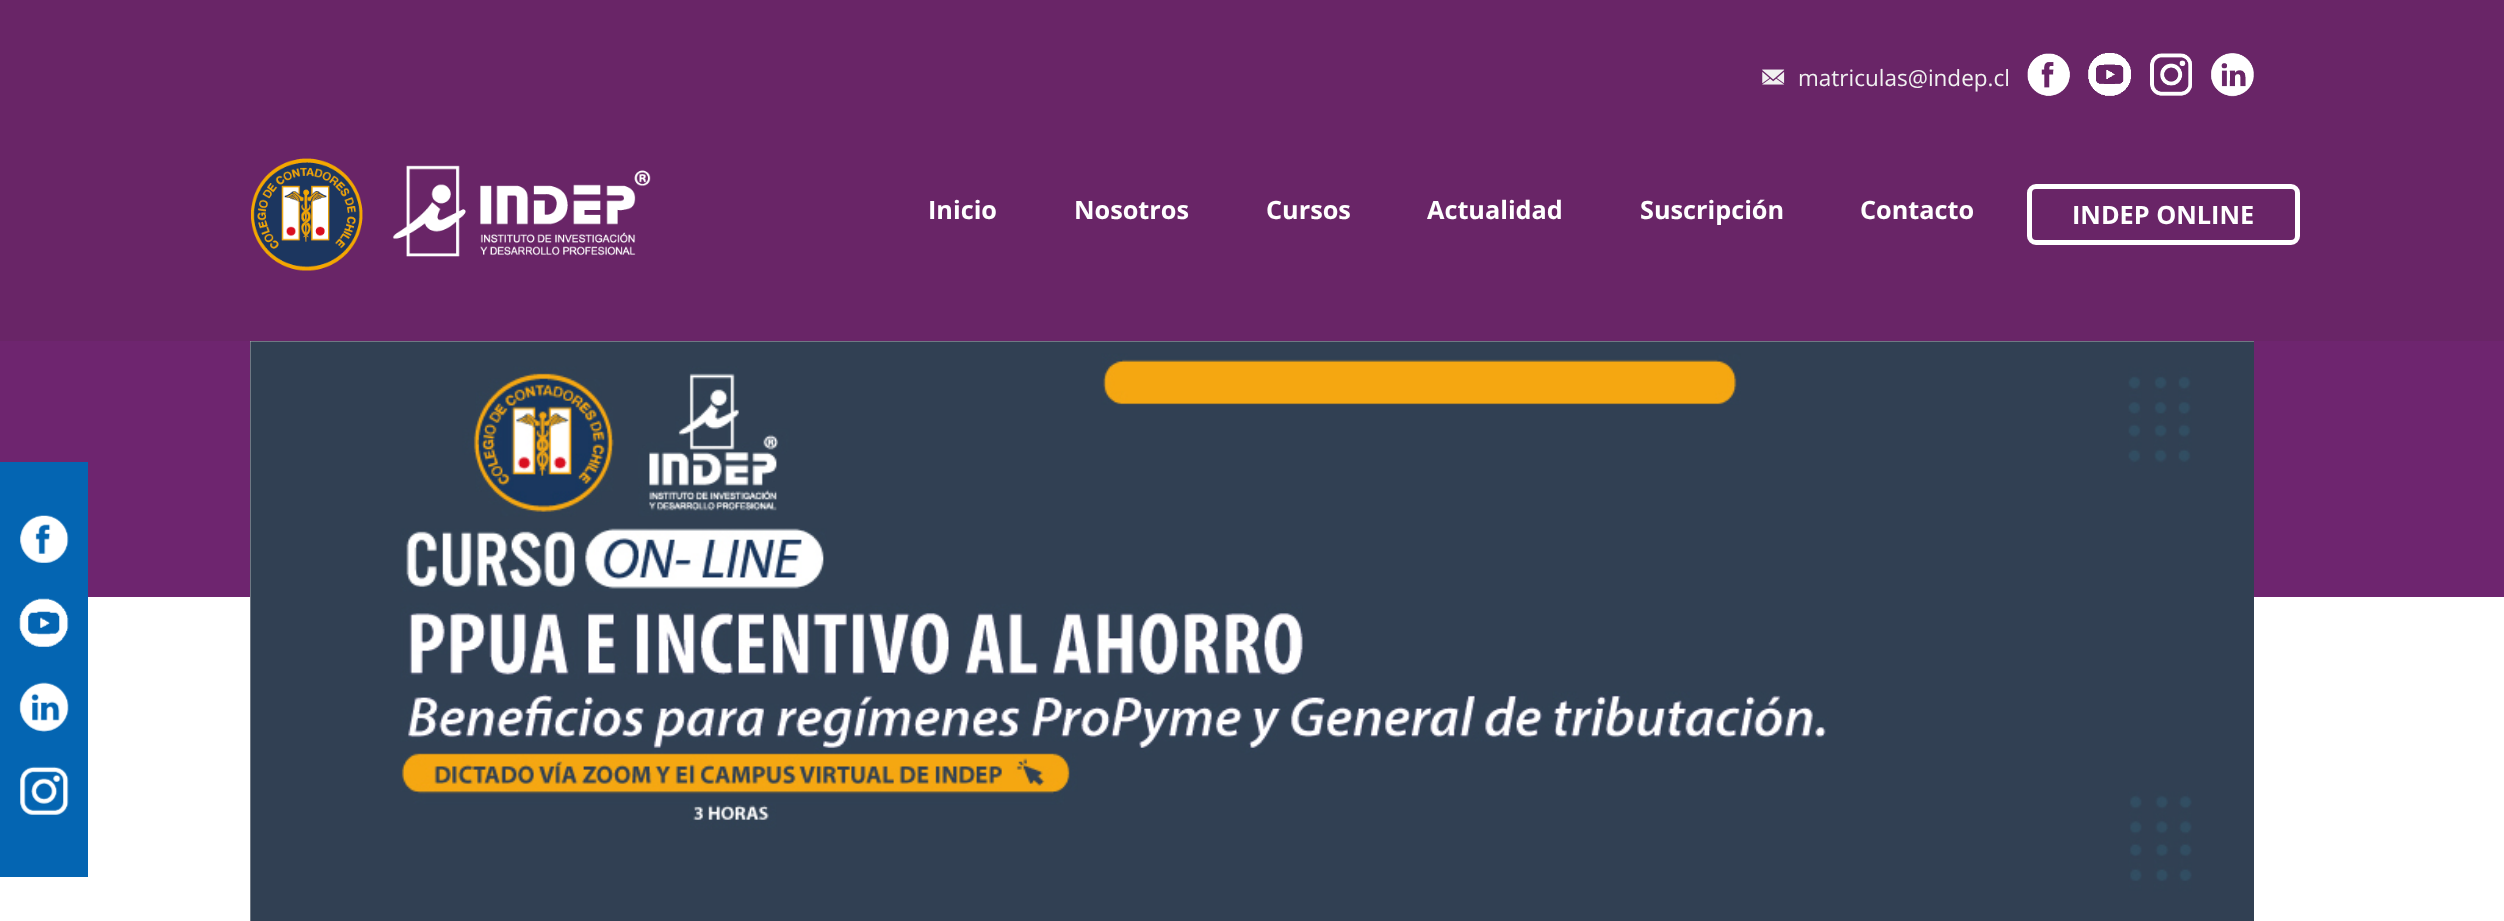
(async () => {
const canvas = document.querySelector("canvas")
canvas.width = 2504
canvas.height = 921
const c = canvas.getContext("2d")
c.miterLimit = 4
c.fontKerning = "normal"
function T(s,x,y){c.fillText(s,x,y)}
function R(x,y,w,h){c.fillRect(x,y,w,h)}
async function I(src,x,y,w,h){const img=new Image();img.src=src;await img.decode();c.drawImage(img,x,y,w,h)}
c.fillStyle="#fff"
R(0,0,2504,921)
c.fillStyle="#692567"
R(0,0,2504,341)
await I("1.png",1762,69,23,16)
c.font="22.5px Open Sans"
c.fillStyle="#f1f1f1"
T("matriculas@indep.cl",1798,86)
await I("2.png",2027,53,43,43)
await I("3.png",2088,53,43,43)
await I("4.png",2150,53,42,43)
await I("5.png",2211,53,43,44)
await I("6.png",251,158,400,113)
c.font="bold 25.25px Open Sans"
c.fillStyle="#fff"
T("Inicio",928,219)
T("Nosotros",1074,219)
T("Cursos",1266,219)
T("Actualidad",1427,219)
T("Suscripción",1640,219)
T("Contacto",1860,219)
c.beginPath()
c.roundRect(2029.5,186.5,268,56,6.5)
c.strokeStyle="#fff"
c.lineWidth=5
c.stroke()
T("INDEP ONLINE",2072,224)
c.fillStyle="#6e256f"
R(0,341,2504,256)
c.fillStyle="#c1c1c1"
R(250,341,2004,580)
await I("7.png",250,341,2004,580)
c.fillStyle="#0465b2"
R(0,462,88,415)
await I("8.png",20,515,49,48)
await I("9.png",19,598,50,49)
await I("10.png",19,682,50,50)
await I("11.png",20,766,49,49)
})()
